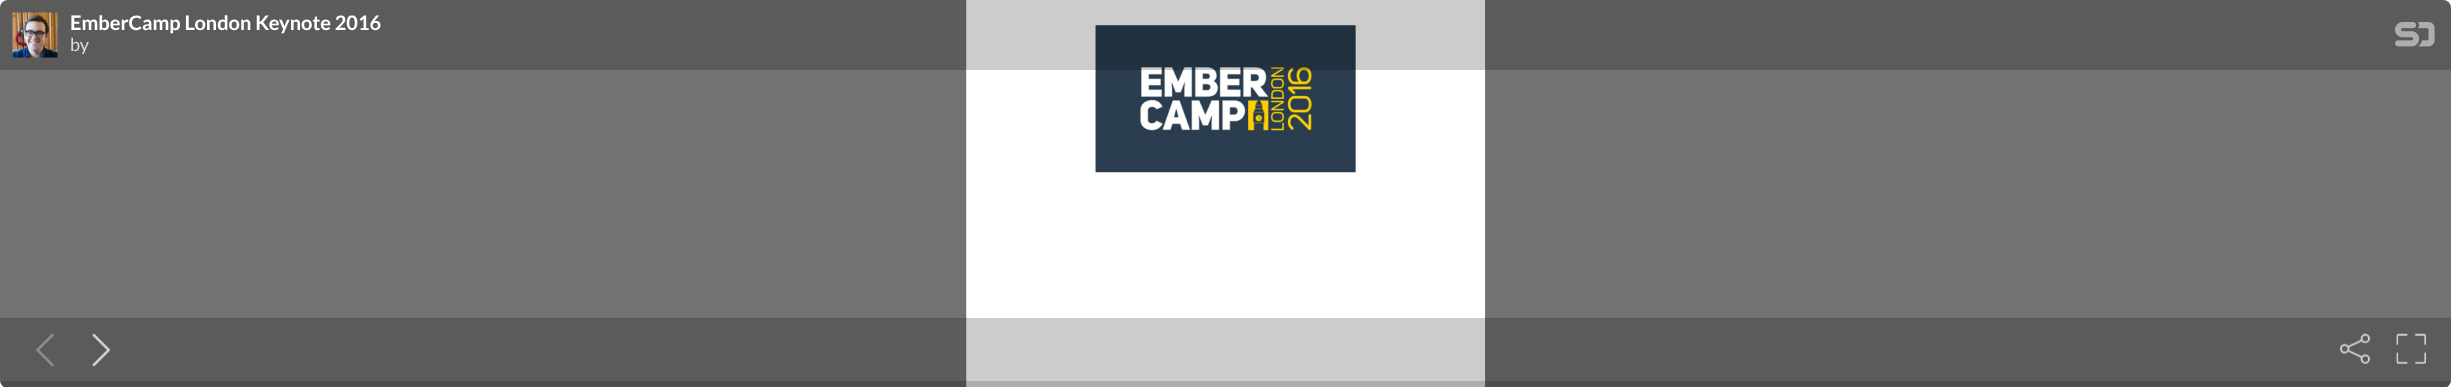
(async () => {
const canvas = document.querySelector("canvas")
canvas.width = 2451
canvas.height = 387
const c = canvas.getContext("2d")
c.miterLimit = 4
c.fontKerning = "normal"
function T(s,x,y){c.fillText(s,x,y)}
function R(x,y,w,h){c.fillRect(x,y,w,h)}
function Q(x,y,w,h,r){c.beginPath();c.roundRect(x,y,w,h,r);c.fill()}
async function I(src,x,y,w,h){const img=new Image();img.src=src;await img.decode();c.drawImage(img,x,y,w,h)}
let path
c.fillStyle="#fff"
R(0,0,2451,387)
c.fillStyle="#727272"
Q(0,0,2451,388,8)
await I("1.png",966,0,520,387)
c.fillStyle="#00000033"
c.beginPath()
c.roundRect(0,0,2451,70,[8,8,0,0])
c.fill()
await I("2.png",12,12,46,46)
c.font="bold 20px Lato"
c.fillStyle="#fff"
T("EmberCamp London Keynote 2016",70,30)
await I("3.png",2395,22,40,25)
c.font="18px Lato"
c.fillStyle="#dedede"
T("by",70,51)
c.fillStyle="#00000033"
path = new Path2D("M0 318h2451v62c0 4.5-3.5 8-8 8h-2435c-4.5 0-8-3.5-8-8z")
c.fill(path)
await I("4.png",36,333,18,34)
await I("5.png",92,333,18,34)
await I("6.png",2340,333,30,31)
await I("7.png",2396,333,30,31)
c.save()
c.beginPath()
c.roundRect(0,0,2451,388,8)
c.clip()
c.fillStyle="#00000026"
R(0,381,2451,6)
c.restore()
})()
